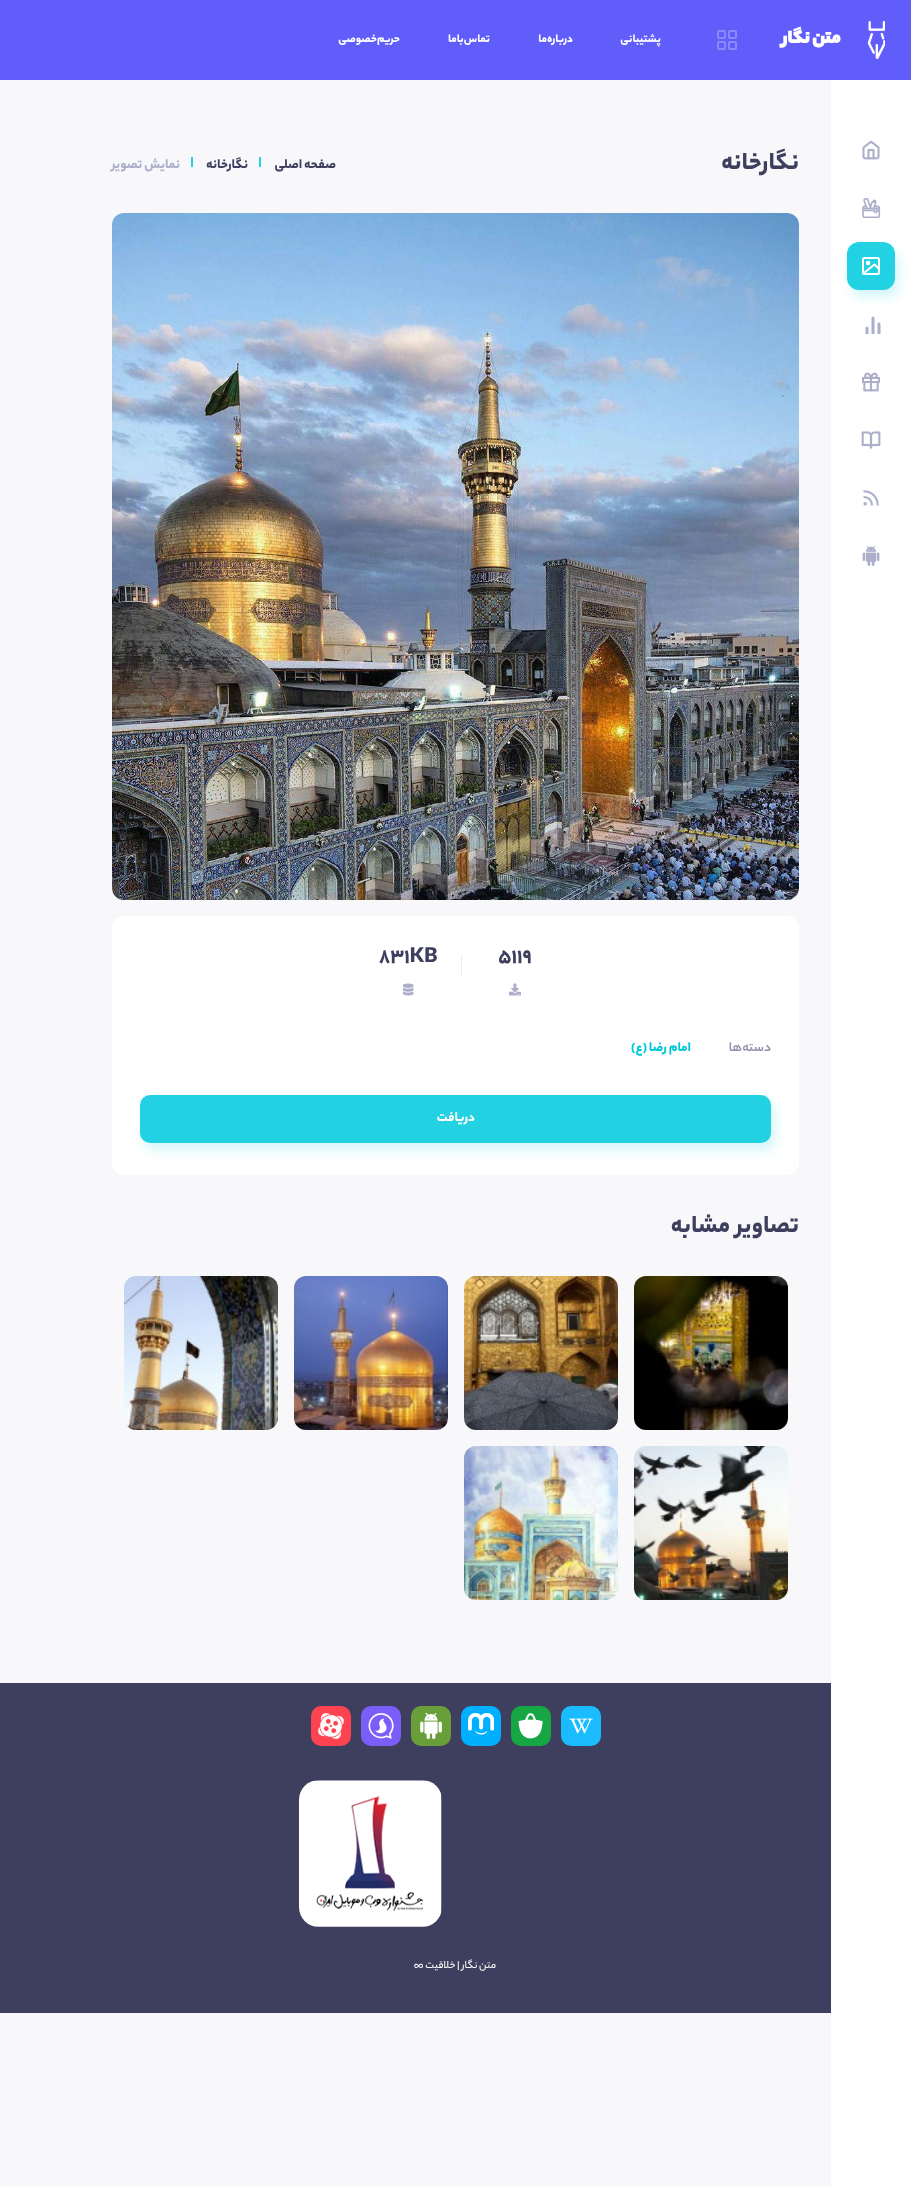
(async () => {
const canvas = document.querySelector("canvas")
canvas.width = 911
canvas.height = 2187
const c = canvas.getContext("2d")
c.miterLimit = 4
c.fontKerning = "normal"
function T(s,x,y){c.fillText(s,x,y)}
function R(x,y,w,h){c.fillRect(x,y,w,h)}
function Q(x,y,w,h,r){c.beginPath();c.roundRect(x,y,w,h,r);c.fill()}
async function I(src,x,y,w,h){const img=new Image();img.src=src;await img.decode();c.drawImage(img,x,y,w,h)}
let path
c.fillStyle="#f8f8fb"
R(0,0,911,2187)
c.fillStyle="#615dfa"
R(0,0,911,80)
await I("1.png",867,21,18,38)
c.direction="rtl"
c.font="900 20px 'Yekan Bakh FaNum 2'"
c.fillStyle="#fff"
T("متن نگار",841,43)
await I("2.png",717,30,20,20)
c.font="900 12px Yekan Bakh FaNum"
T("پشتیبانی",661,42)
T("درباره‌ما",573,42)
T("تماس‌باما",490,42)
T("حریم‌خصوصی",400,42)
R(831,80,80,2107)
await I("3.png",862,140,18,20)
await I("4.png",862,198,19,20)
c.fillStyle="#23d2e233"
c.filter="blur(6px)"
c.beginPath()
c.roundRect(851,249,48,48,12)
c.fill()
c.filter="none"
c.fillStyle="#23d2e2"
Q(847,242,48,48,12)
c.beginPath()
c.roundRect(863,258,16,16,1.5)
c.strokeStyle="#fff"
c.lineWidth=2
c.stroke()
c.beginPath()
c.arc(868.1,263.1,1.2,0,7)
c.lineWidth=2.1
c.stroke()
path = new Path2D("M878 268l-3.5-3.5l-10 8")
c.lineCap="round"
c.lineJoin="round"
c.stroke(path)
c.save()
c.beginPath()
c.rect(861,314,20,20)
c.clip()
path = new Path2D("M879 334v-10m-6 10v-16m-6 16v-6")
c.strokeStyle="#adafca"
c.lineWidth=3
c.stroke(path)
c.restore()
await I("5.png",862,372,18,20)
await I("6.png",861,431,20,18)
await I("7.png",863,490,16,16)
await I("8.png",862,546,18,20)
c.font="900 26px Yekan Bakh FaNum"
c.fillStyle="#3e3f5e"
T("نگارخانه",799,169)
c.font="900 14px Yekan Bakh FaNum"
T("صفحه اصلی",336,168)
c.fillStyle="#23d2e2"
R(259,157,2,10)
c.fillStyle="#3e3f5e"
T("نگارخانه",248,168)
c.fillStyle="#23d2e2"
R(191,157,2,10)
c.fillStyle="#adafca"
T("نمایش تصویر",180,168)
await I("9.png",112,213,687,687)
c.fillStyle="#fff"
Q(112,916,687,259,12)
c.direction="ltr"
c.font="900 22px Yekan Bakh FaNum"
c.fillStyle="#3e3f5e"
T("5119",498,962)
c.fillStyle="#eaeaf5"
R(461,956,1,20)
await I("10.png",509,983,12,13)
c.fillStyle="#3e3f5e"
T("831KB",379,962)
await I("11.png",403,983,11,13)
c.direction="rtl"
c.font="bold 14px Yekan Bakh FaNum"
c.fillStyle="#8f91ac"
T("دسته‌ها",771,1051)
c.font="900 14px Yekan Bakh FaNum"
c.fillStyle="#00c7d9"
T("امام رضا (ع)",691,1051)
c.fillStyle="#23d2e233"
c.filter="blur(6px)"
c.beginPath()
c.roundRect(144,1102,631,48,10)
c.fill()
c.filter="none"
c.fillStyle="#23d2e2"
Q(140,1095,631,48,10)
c.fillStyle="#fff"
T("دریافت",475,1121)
c.font="900 26px Yekan Bakh FaNum"
c.fillStyle="#3e3f5e"
T("تصاویر مشابه",799,1232)
await I("12.png",634,1276,154,154)
await I("13.png",464,1276,154,154)
await I("14.png",294,1276,154,154)
await I("15.png",124,1276,154,154)
await I("16.png",634,1446,154,154)
await I("17.png",464,1446,154,154)
R(0,1683,831,330)
c.fillStyle="#1abcff"
Q(561,1706,40,40,10)
await I("18.png",569,1718,24,16)
c.fillStyle="#16a644"
Q(511,1706,40,40,10)
await I("19.png",518,1713,25,26)
c.fillStyle="#00b0ff"
Q(461,1706,40,40,10)
await I("20.png",468,1713,26,22)
c.fillStyle="#689f38"
Q(411,1706,40,40,10)
await I("21.png",420,1713,22,26)
c.fillStyle="#7b5dfa"
Q(361,1706,40,40,10)
await I("22.png",368,1713,26,26)
c.fillStyle="#fd434f"
Q(311,1706,40,40,10)
await I("23.png",318,1713,26,26)
await I("24.png",299,1780,143,147)
c.font="500 11.25px Yekan Bakh FaNum"
c.fillStyle="#fff"
T("متن نگار | خلاقیت ∞",496,1968)
})()
